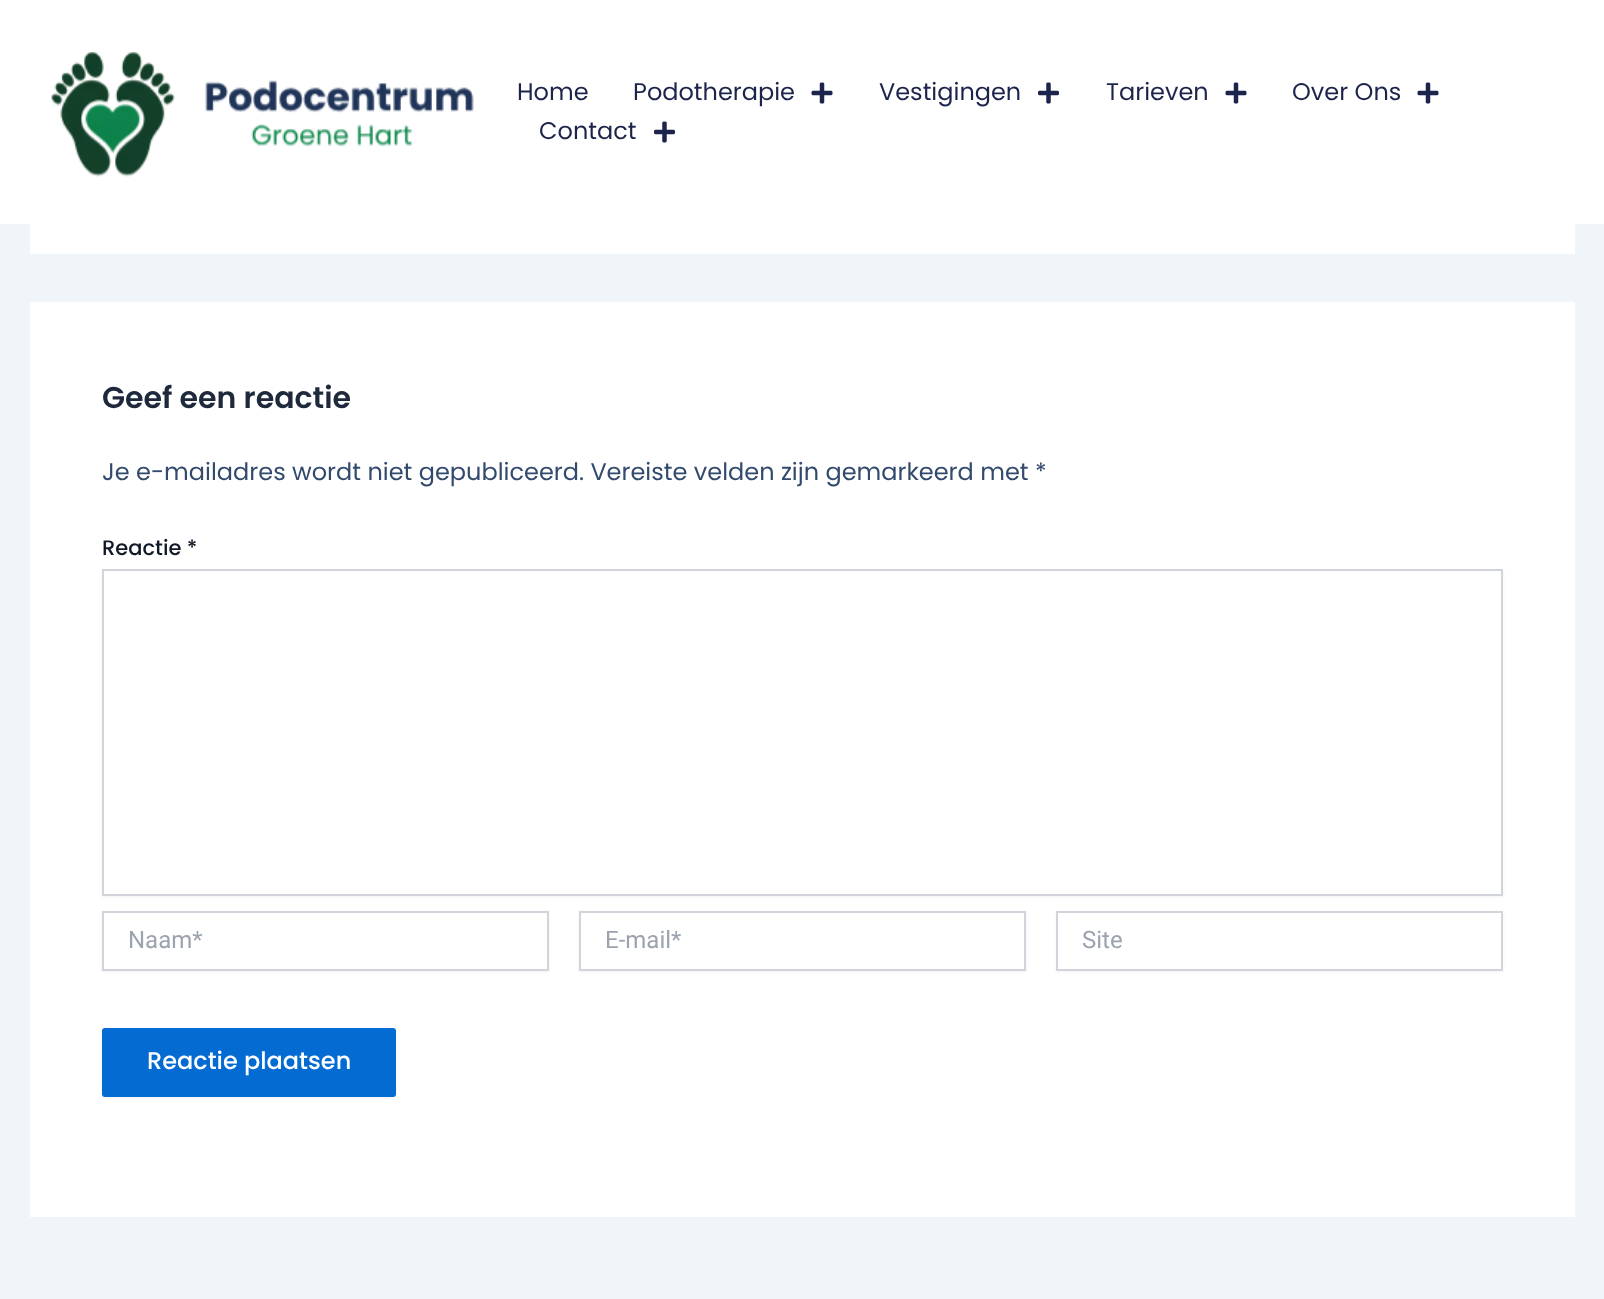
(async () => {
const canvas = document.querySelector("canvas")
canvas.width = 1604
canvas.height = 1299
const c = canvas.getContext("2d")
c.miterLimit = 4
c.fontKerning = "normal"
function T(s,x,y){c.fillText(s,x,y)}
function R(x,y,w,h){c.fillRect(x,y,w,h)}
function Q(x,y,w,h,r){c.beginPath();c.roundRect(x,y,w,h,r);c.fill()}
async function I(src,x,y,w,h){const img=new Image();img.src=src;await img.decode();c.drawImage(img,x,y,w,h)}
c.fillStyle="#f0f5fa"
R(0,0,1604,1299)
c.fillStyle="#fff"
R(0,0,1604,224)
await I("1.png",51,51,423,126)
c.font="24px Poppins"
c.fillStyle="#1c244b"
T("Home",517,100)
T("Podotherapie",633,100)
await I("2.png",811,82,22,22)
T("Vestigingen",879,100)
await I("3.png",1038,82,21,22)
T("Tarieven",1106,100)
await I("2.png",1225,82,22,22)
T("Over Ons",1292,100)
await I("2.png",1417,82,22,22)
T("Contact",539,139)
await I("3.png",654,121,21,22)
c.fillStyle="#fff"
R(30,224,1545,30)
R(30,302,1545,915)
c.font="600 30px Poppins"
c.fillStyle="#1e293b"
T("Geef een reactie",102,408)
c.font="24px Poppins"
c.fillStyle="#324a6d"
T("Je e-mailadres wordt niet gepubliceerd. Vereiste velden zijn gemarkeerd met *",102,480)
c.font="500 21px Poppins"
c.fillStyle="#111827"
T("Reactie *",102,555)
c.fillStyle="#0000000d"
c.filter="blur(1.5px)"
c.beginPath()
c.rect(102,570,1401,327)
c.fill()
c.filter="none"
c.fillStyle="#fff"
c.beginPath()
c.rect(103,570,1399,325)
c.fill()
c.strokeStyle="#d1d5db"
c.lineWidth=2
c.stroke()
c.fillStyle="#0000000d"
c.filter="blur(1.5px)"
c.beginPath()
c.rect(102,912,447,60)
c.fill()
c.filter="none"
c.fillStyle="#fff"
c.beginPath()
c.rect(103,912,445,58)
c.fill()
c.stroke()
c.font="24px Roboto"
c.fillStyle="#9ca3af"
T("Naam*",128,948)
c.fillStyle="#0000000d"
c.filter="blur(1.5px)"
c.beginPath()
c.rect(579,912,447,60)
c.fill()
c.filter="none"
c.fillStyle="#fff"
c.beginPath()
c.rect(580,912,445,58)
c.fill()
c.stroke()
c.fillStyle="#9ca3af"
T("E-mail*",605,948)
c.fillStyle="#0000000d"
c.filter="blur(1.5px)"
c.beginPath()
c.rect(1056,912,447,60)
c.fill()
c.filter="none"
c.fillStyle="#fff"
c.beginPath()
c.rect(1057,912,445,58)
c.fill()
c.stroke()
c.fillStyle="#9ca3af"
T("Site",1082,948)
c.fillStyle="#0000000d"
c.filter="blur(1.5px)"
c.beginPath()
c.roundRect(102,1029,294,69,3)
c.fill()
c.filter="none"
c.fillStyle="#046bd2"
Q(102,1028,294,69,3)
c.font="500 24px Poppins"
c.fillStyle="#fff"
T("Reactie plaatsen",147,1069)
})()
